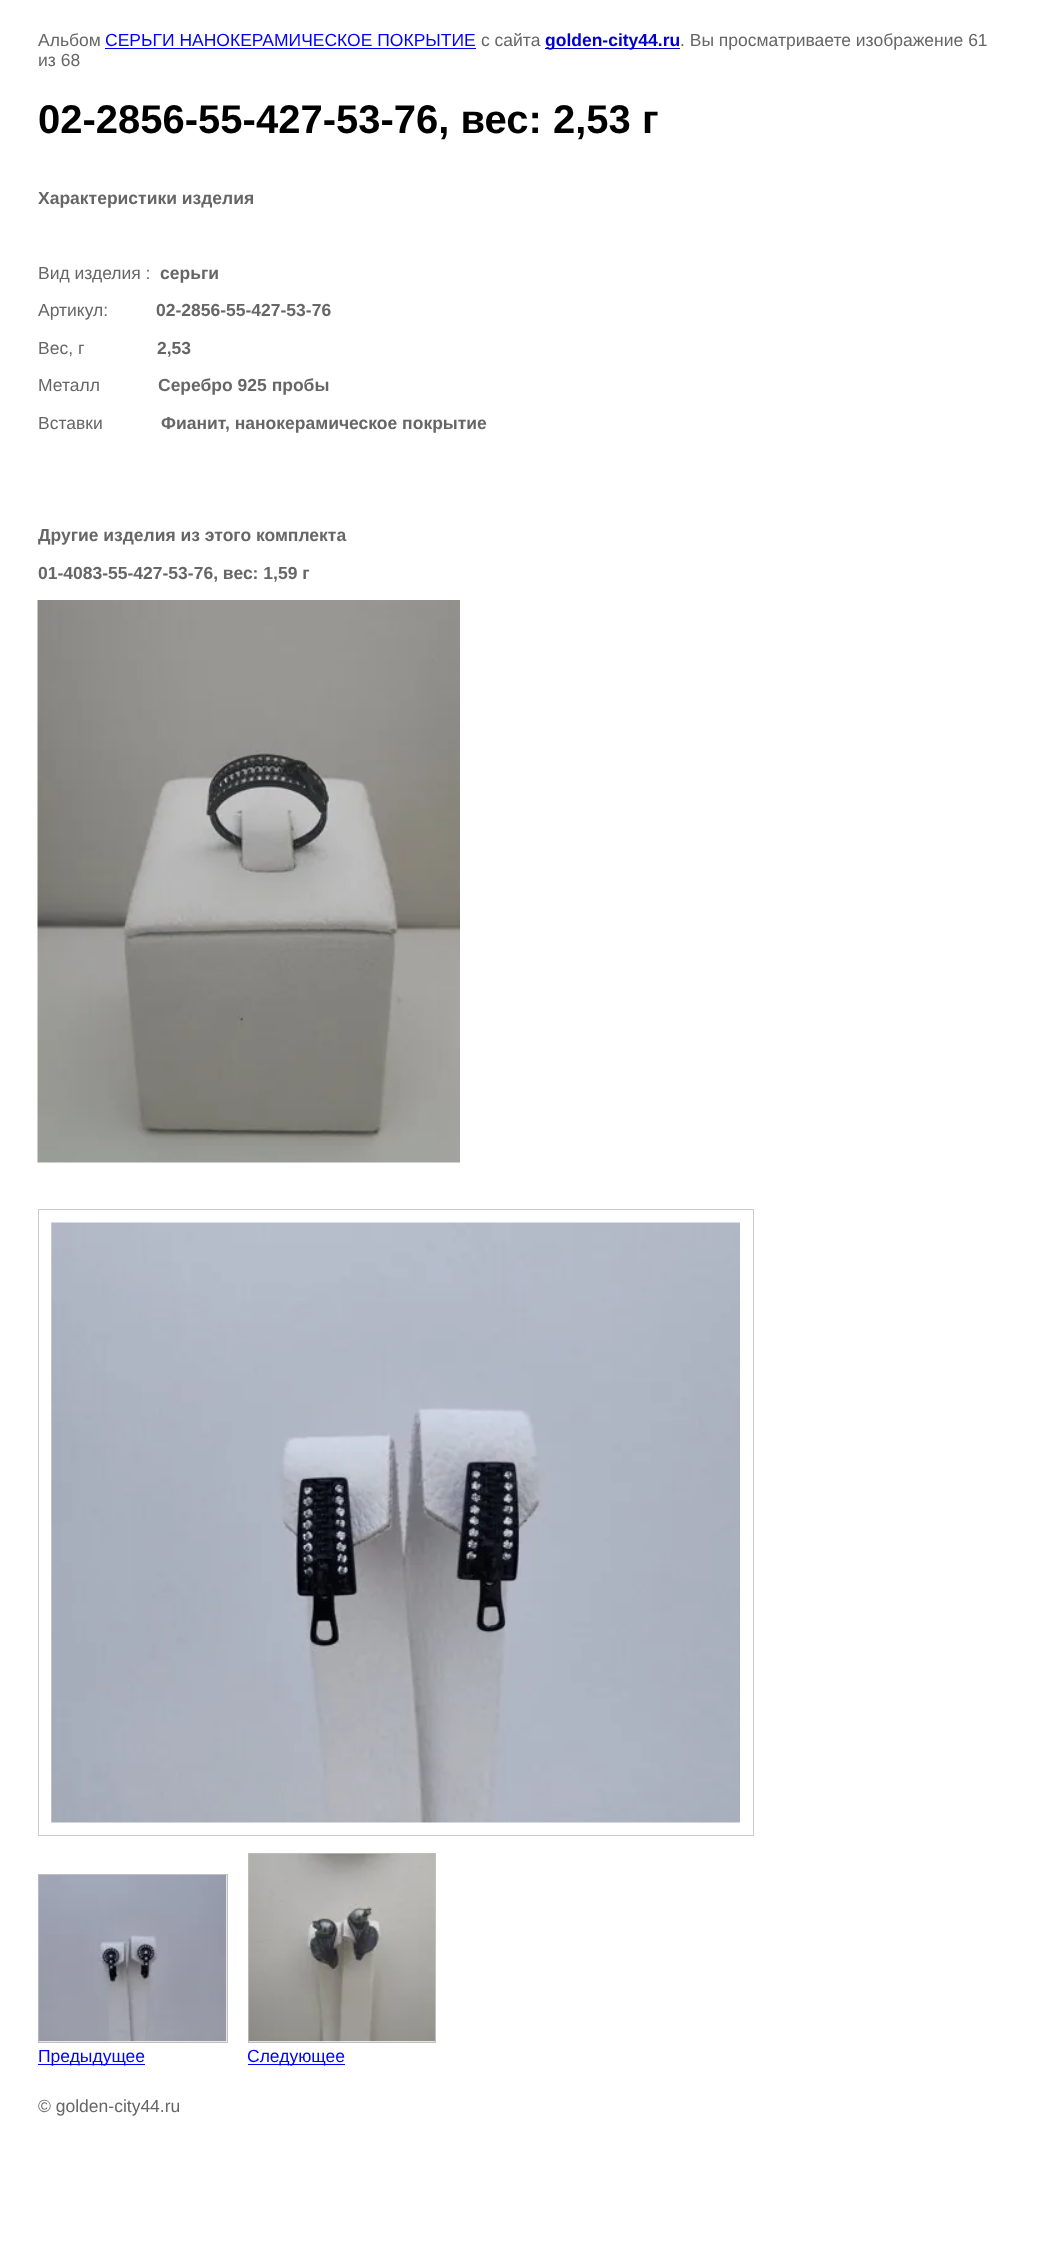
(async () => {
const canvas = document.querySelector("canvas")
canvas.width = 1041
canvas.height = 2264
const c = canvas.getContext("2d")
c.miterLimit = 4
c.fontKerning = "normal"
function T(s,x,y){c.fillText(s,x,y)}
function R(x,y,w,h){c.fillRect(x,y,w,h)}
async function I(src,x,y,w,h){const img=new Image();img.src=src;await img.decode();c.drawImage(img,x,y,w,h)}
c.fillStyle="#fff"
R(0,0,1041,2264)
c.font="17.5px Liberation Sans"
c.fillStyle="#666"
T("Альбом",38,46)
c.fillStyle="#00f"
T("СЕРЬГИ НАНОКЕРАМИЧЕСКОЕ ПОКРЫТИЕ",105,46)
R(105,48,371,1)
c.fillStyle="#666"
T("с сайта",481,46)
c.fillStyle="#00c"
R(545,48,135,1)
c.font="bold 17.5px Liberation Sans"
T("golden-city44.ru",545,46)
c.font="17.5px Liberation Sans"
c.fillStyle="#666"
T(". Вы просматриваете изображение 61",680,46)
T("из 68",38,66)
c.font="bold 40px Liberation Sans"
c.fillStyle="#000"
T("02-2856-55-427-53-76, вес: 2,53 г",38,133)
c.font="bold 17.5px Liberation Sans"
c.fillStyle="#666"
T("Характеристики изделия",38,204)
c.font="17.5px Liberation Sans"
T("Вид изделия :",38,279)
c.font="bold 17.5px Liberation Sans"
T("серьги",160,279)
c.font="17.5px Liberation Sans"
T("Артикул:",38,316)
c.font="bold 17.5px Liberation Sans"
T("02-2856-55-427-53-76",156,316)
c.font="17.5px Liberation Sans"
T("Вес, г",38,354)
c.font="bold 17.5px Liberation Sans"
T("2,53",157,354)
c.font="17.5px Liberation Sans"
T("Металл",38,391)
c.font="bold 17.5px Liberation Sans"
T("Серебро 925 пробы",158,391)
c.font="17.5px Liberation Sans"
T("Вставки",38,429)
c.font="bold 17.5px Liberation Sans"
T("Фианит, нанокерамическое покрытие",161,429)
T("Другие изделия из этого комплекта",38,541)
T("01-4083-55-427-53-76, вес: 1,59 г",38,579)
await I("1.png",37,600,423,563)
c.strokeStyle="#ccc"
c.strokeRect(38.5,1209.5,715,626)
await I("2.png",51,1222,689,601)
c.strokeStyle="#c0c0c0"
c.strokeRect(38.5,1874.5,189,168)
await I("3.png",38,1875,189,167)
c.fillStyle="#00f"
R(38,2064,107,1)
c.font="17.5px Liberation Sans"
T("Предыдущее",38,2062)
c.strokeRect(248.5,1853.5,187,189)
await I("4.png",248,1853,187,189)
R(248,2064,97,1)
T("Следующее",247,2062)
c.fillStyle="#666"
T("© golden-city44.ru",38,2112)
})()
